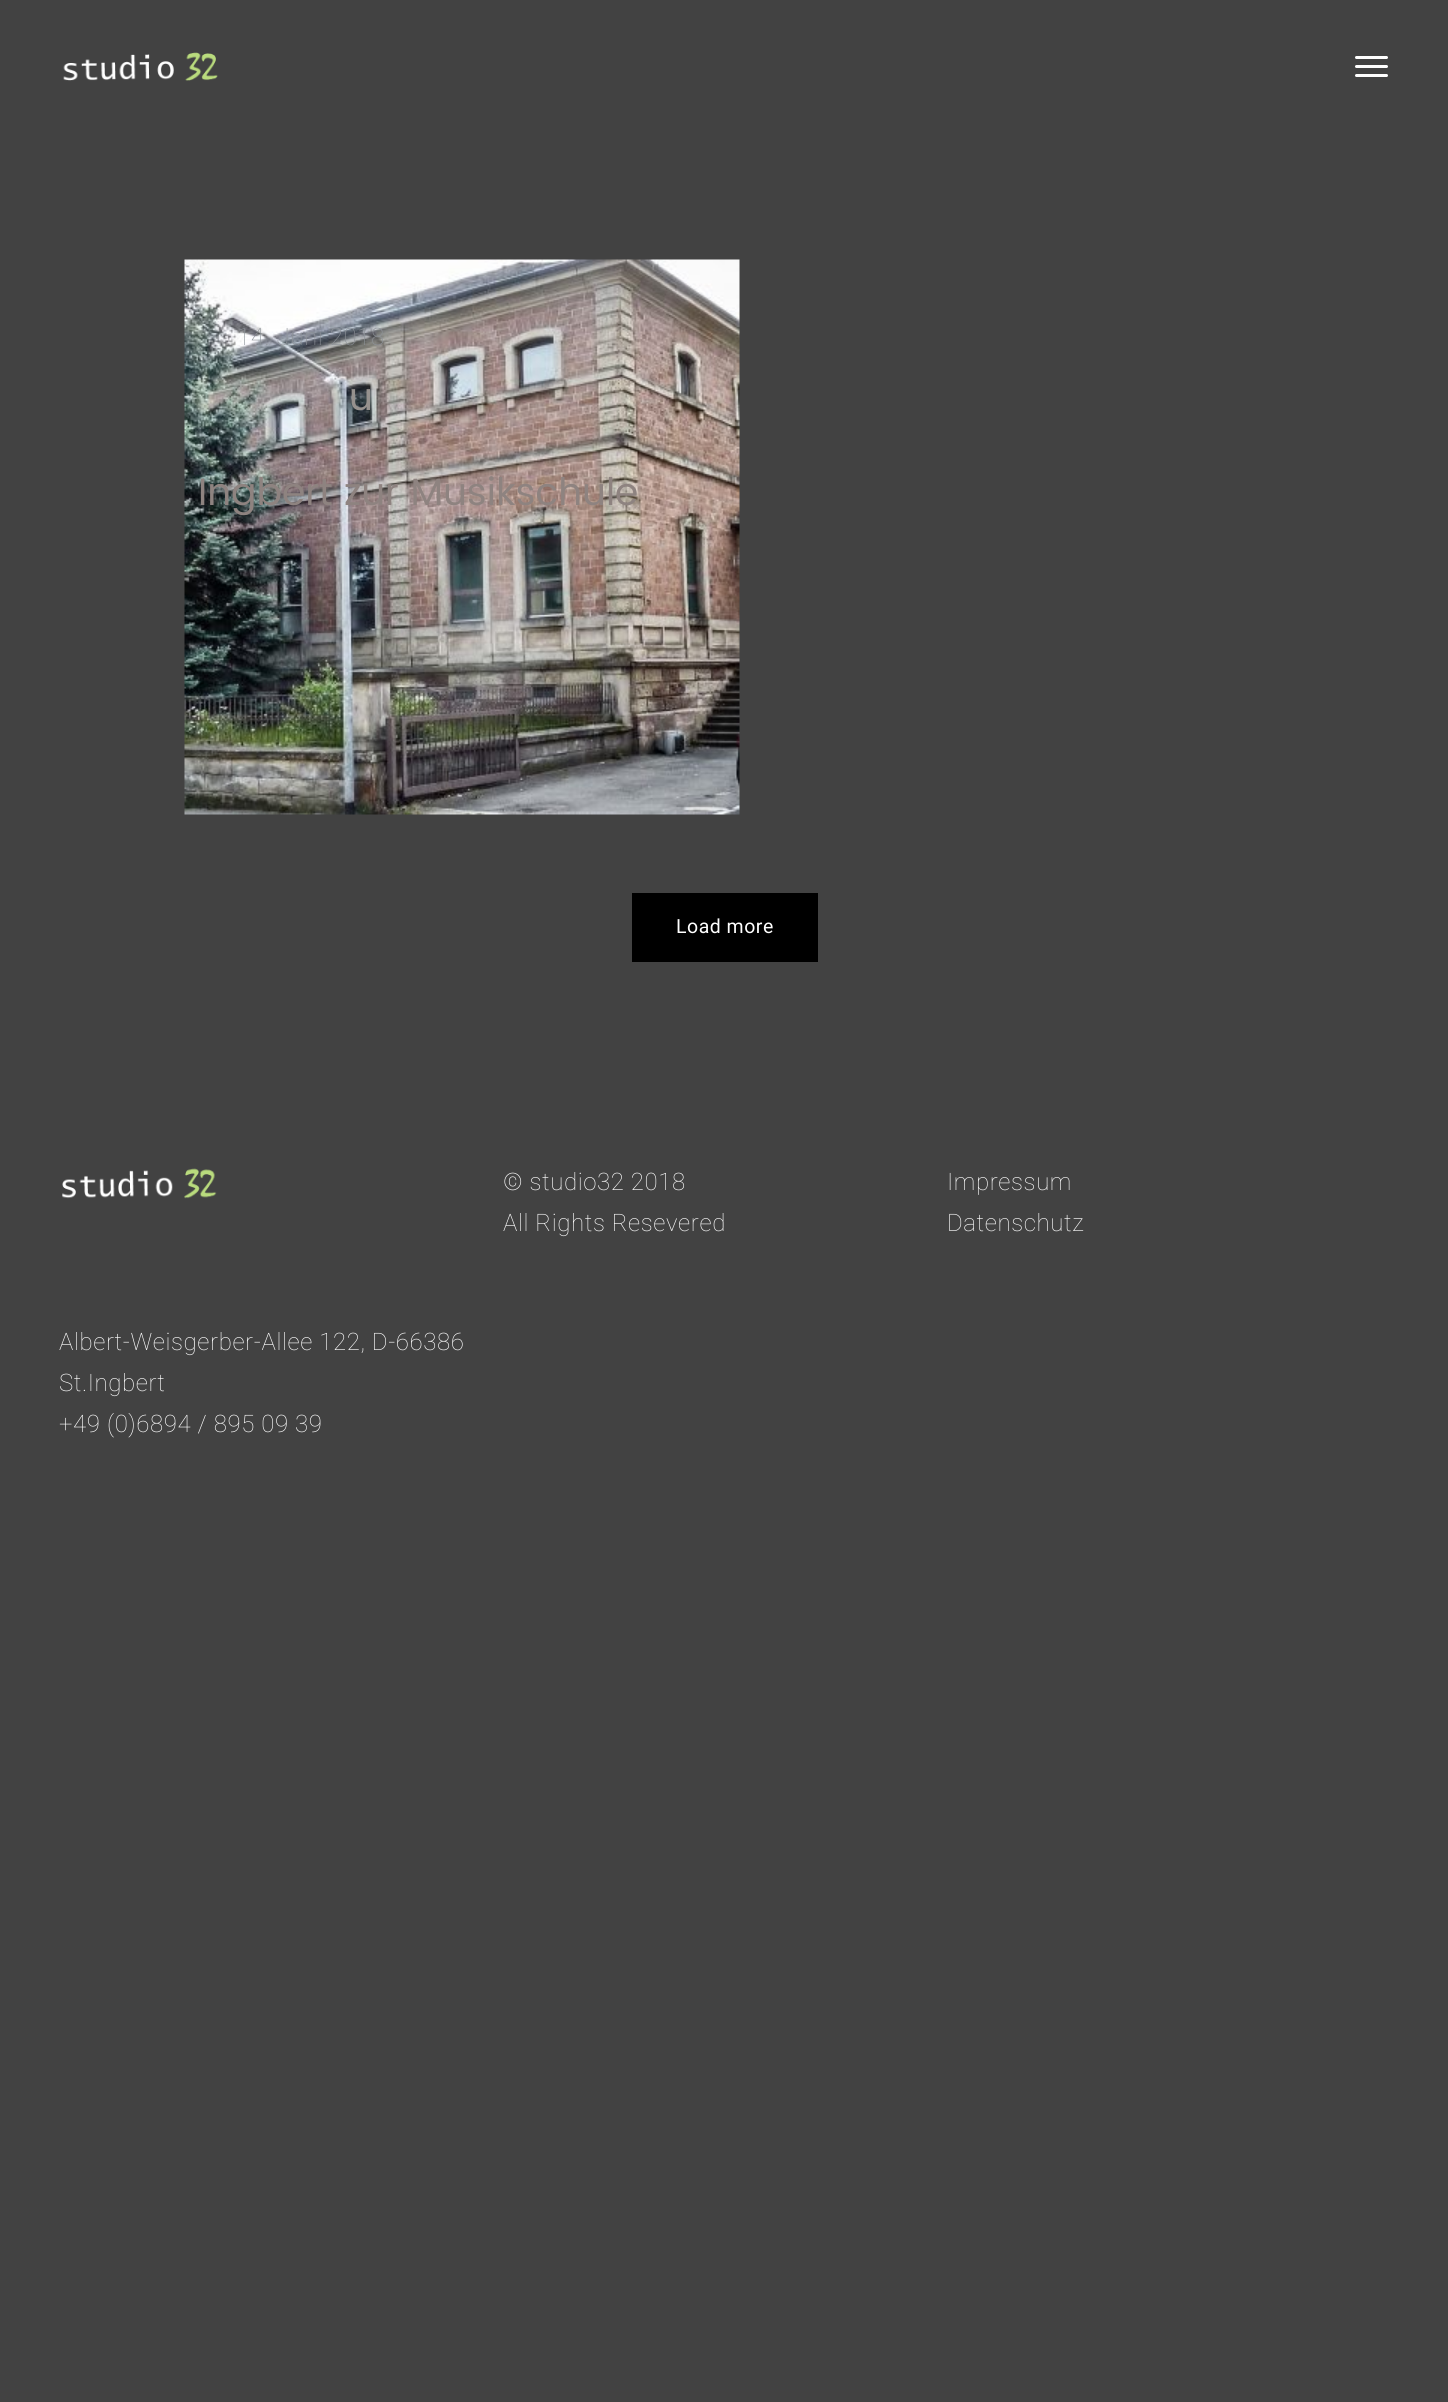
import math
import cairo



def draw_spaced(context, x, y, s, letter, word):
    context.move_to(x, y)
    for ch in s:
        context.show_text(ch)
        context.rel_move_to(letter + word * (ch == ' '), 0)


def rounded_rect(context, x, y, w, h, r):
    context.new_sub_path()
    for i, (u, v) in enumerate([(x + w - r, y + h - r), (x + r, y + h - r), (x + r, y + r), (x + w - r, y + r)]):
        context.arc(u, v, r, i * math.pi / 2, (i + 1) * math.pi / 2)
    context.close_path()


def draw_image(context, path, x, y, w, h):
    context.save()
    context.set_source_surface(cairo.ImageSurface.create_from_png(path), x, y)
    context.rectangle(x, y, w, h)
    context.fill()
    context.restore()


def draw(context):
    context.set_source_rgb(66 / 255, 66 / 255, 66 / 255)
    context.paint()
    draw_image(context, "images/1.png", 63, 52, 155, 29)
    context.set_source_rgb(1, 1, 1)
    rounded_rect(context, 1355, 56, 33, 3, 1.5)
    context.fill()
    rounded_rect(context, 1355, 65, 33, 3, 1.5)
    context.fill()
    rounded_rect(context, 1355, 74, 33, 3, 1.5)
    context.fill()
    draw_image(context, "images/2.png", 184, 259, 556, 556)
    context.set_source_rgb(0, 0, 0)
    context.rectangle(632, 893, 186, 69)
    context.fill()
    draw_image(context, "images/3.png", 62, 1168, 155, 31)
    context.select_font_face("Roboto Thin")
    context.set_font_size(24)
    context.set_source_rgb(141 / 255, 146 / 255, 152 / 255)
    draw_spaced(context, 237, 345, "14. Juni 2018", 0.6, 0)
    context.select_font_face("Poppins")
    context.set_font_size(38)
    context.set_source_rgb(150 / 255, 145 / 255, 142 / 255)
    context.move_to(349, 410)
    context.show_text("u")
    context.set_source_rgb(142 / 255, 131 / 255, 128 / 255)
    context.move_to(198, 505)
    context.show_text("Ingbert zur Musikschule")
    context.select_font_face("Roboto")
    context.set_font_size(19.5)
    context.set_source_rgb(1, 1, 1)
    draw_spaced(context, 676, 933, "Load more", 0.5, 0)
    context.select_font_face("Roboto Thin")
    context.set_font_size(24)
    draw_spaced(context, 503, 1190, "© studio32 2018", 0.6, 0)
    draw_spaced(context, 503, 1231, "All Rights Resevered", 0.6, 0)
    draw_spaced(context, 947, 1190, "Impressum", 0.6, 0)
    draw_spaced(context, 947, 1231, "Datenschutz", 0.6, 0)
    draw_spaced(context, 59, 1350, "Albert-Weisgerber-Allee 122, D-66386", 0.6, 0)
    draw_spaced(context, 59, 1391, "St.Ingbert", 0.6, 0)
    draw_spaced(context, 59, 1432, "+49 (0)6894 / 895 09 39", 0.6, 0)


surface = cairo.ImageSurface(cairo.Format.RGB24, 1448, 2402)
context = cairo.Context(surface)
options = cairo.FontOptions()
options.set_hint_metrics(cairo.HintMetrics.OFF)
options.set_hint_style(cairo.HintStyle.NONE)
context.set_font_options(options)
context.set_miter_limit(4)
draw(context)
surface.write_to_png("out.png")
